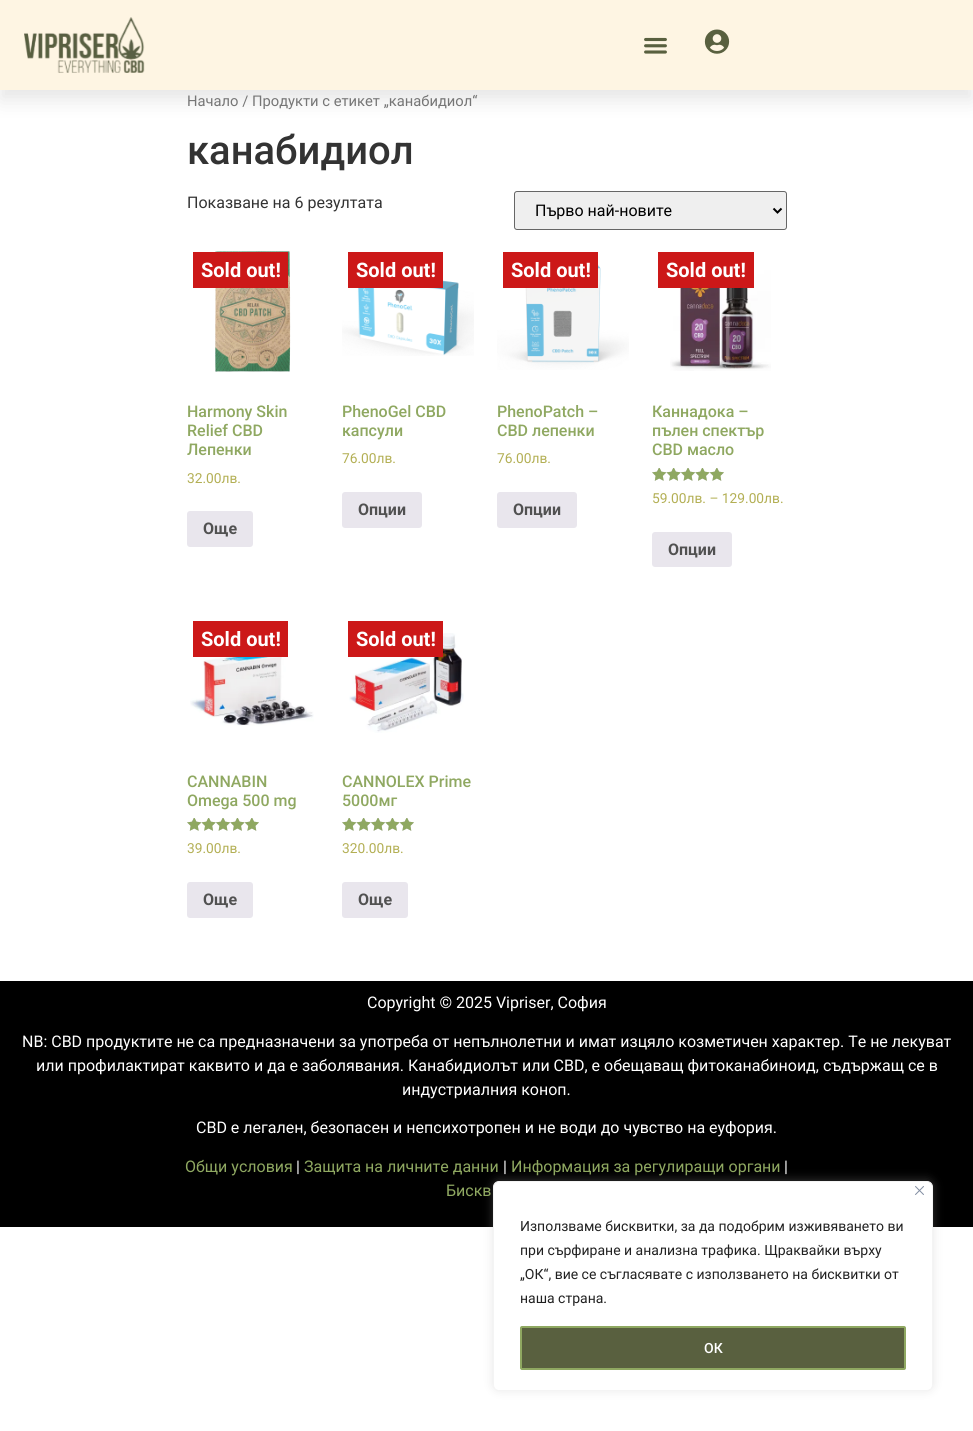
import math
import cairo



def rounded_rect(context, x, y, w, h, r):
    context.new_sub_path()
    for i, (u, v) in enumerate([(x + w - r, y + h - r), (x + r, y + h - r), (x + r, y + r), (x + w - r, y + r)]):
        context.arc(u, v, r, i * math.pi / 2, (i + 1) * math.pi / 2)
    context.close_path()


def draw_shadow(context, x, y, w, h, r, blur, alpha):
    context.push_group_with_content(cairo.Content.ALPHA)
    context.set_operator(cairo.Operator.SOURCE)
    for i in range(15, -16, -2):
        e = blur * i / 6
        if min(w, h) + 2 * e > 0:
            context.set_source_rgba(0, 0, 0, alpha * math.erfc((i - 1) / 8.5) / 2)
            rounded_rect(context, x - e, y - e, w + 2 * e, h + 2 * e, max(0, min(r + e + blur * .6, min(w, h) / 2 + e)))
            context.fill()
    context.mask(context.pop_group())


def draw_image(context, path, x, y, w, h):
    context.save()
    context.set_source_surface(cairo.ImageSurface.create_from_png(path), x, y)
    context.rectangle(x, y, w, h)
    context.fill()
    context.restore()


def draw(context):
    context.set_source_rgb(1, 1, 1)
    context.paint()
    context.set_source_rgb(0, 0, 0)
    draw_shadow(context, 0, 10, 973, 90, 0, 10, 0.1)
    context.set_source_rgb(254 / 255, 245 / 255, 227 / 255)
    context.rectangle(0, 0, 973, 90)
    context.fill()
    draw_image(context, "images/1.png", 24, 17, 121, 56)
    draw_image(context, "images/2.png", 644, 37, 23, 17)
    draw_image(context, "images/3.png", 704, 29, 26, 25)
    context.set_source_rgb(239 / 255, 239 / 255, 239 / 255)
    rounded_rect(context, 514.5, 191.5, 272, 38, 2.5)
    context.fill_preserve()
    context.set_source_rgb(102 / 255, 102 / 255, 102 / 255)
    context.set_line_width(1)
    context.stroke()
    context.new_path()
    context.move_to(773.5, 208.5)
    context.line_to(777.5, 212.5)
    context.line_to(781.5, 208.5)
    context.set_source_rgb(0, 0, 0)
    context.set_line_width(2)
    context.stroke()
    draw_image(context, "images/4.png", 215, 251, 76, 121)
    context.set_source_rgb(204 / 255, 24 / 255, 24 / 255)
    context.rectangle(193, 252, 95, 36)
    context.fill()
    context.set_source_rgb(233 / 255, 230 / 255, 237 / 255)
    rounded_rect(context, 187, 511, 66, 36, 3)
    context.fill()
    draw_image(context, "images/5.png", 342, 272, 132, 84)
    context.set_source_rgb(204 / 255, 24 / 255, 24 / 255)
    context.rectangle(348, 252, 95, 36)
    context.fill()
    context.set_source_rgb(233 / 255, 230 / 255, 237 / 255)
    rounded_rect(context, 342, 492, 80, 36, 3)
    context.fill()
    draw_image(context, "images/6.png", 497, 264, 132, 106)
    context.set_source_rgb(204 / 255, 24 / 255, 24 / 255)
    context.rectangle(503, 252, 95, 36)
    context.fill()
    context.set_source_rgb(233 / 255, 230 / 255, 237 / 255)
    rounded_rect(context, 497, 492, 80, 36, 3)
    context.fill()
    draw_image(context, "images/7.png", 670, 257, 101, 114)
    context.set_source_rgb(204 / 255, 24 / 255, 24 / 255)
    context.rectangle(658, 252, 96, 36)
    context.fill()
    draw_image(context, "images/8.png", 652, 468, 72, 13)
    draw_image(context, "images/9.png", 652, 468, 72, 13)
    context.set_source_rgb(233 / 255, 230 / 255, 237 / 255)
    rounded_rect(context, 652, 532, 80, 35, 3)
    context.fill()
    draw_image(context, "images/10.png", 190, 651, 124, 75)
    context.set_source_rgb(204 / 255, 24 / 255, 24 / 255)
    context.rectangle(193, 621, 95, 36)
    context.fill()
    draw_image(context, "images/8.png", 187, 818, 72, 13)
    draw_image(context, "images/9.png", 187, 818, 72, 13)
    context.set_source_rgb(233 / 255, 230 / 255, 237 / 255)
    rounded_rect(context, 187, 882, 66, 36, 3)
    context.fill()
    draw_image(context, "images/11.png", 349, 633, 115, 100)
    context.set_source_rgb(204 / 255, 24 / 255, 24 / 255)
    context.rectangle(348, 621, 95, 36)
    context.fill()
    draw_image(context, "images/8.png", 342, 818, 72, 13)
    draw_image(context, "images/9.png", 342, 818, 72, 13)
    context.set_source_rgb(233 / 255, 230 / 255, 237 / 255)
    rounded_rect(context, 342, 882, 66, 36, 3)
    context.fill()
    context.set_source_rgb(0, 0, 0)
    context.rectangle(0, 981, 973, 246)
    context.fill()
    context.set_source_rgb(172 / 255, 171 / 255, 171 / 255)
    draw_shadow(context, 493, 1180, 440, 210, 6, 5, 0.3)
    context.set_source_rgb(1, 1, 1)
    rounded_rect(context, 493.5, 1181.5, 439, 209, 5.5)
    context.fill_preserve()
    context.set_source_rgb(244 / 255, 244 / 255, 244 / 255)
    context.set_line_width(1)
    context.stroke()
    draw_image(context, "images/12.png", 915, 1186, 9, 9)
    context.set_source_rgb(89 / 255, 96 / 255, 63 / 255)
    rounded_rect(context, 521, 1327, 384, 42, 1)
    context.fill_preserve()
    context.set_source_rgb(143 / 255, 168 / 255, 97 / 255)
    context.set_line_width(2)
    context.stroke()
    context.select_font_face("Roboto")
    context.set_font_size(14.75)
    context.set_source_rgb(118 / 255, 118 / 255, 118 / 255)
    context.move_to(187, 106)
    context.show_text("Начало / Продукти с етикет „канабидиол“")
    context.select_font_face("Roboto Medium")
    context.set_font_size(40)
    context.set_source_rgb(51 / 255, 51 / 255, 51 / 255)
    context.move_to(187, 164)
    context.show_text("канабидиол")
    context.select_font_face("Roboto")
    context.set_font_size(16)
    context.move_to(187, 208)
    context.show_text("Показване на 6 резултата")
    context.set_source_rgb(0, 0, 0)
    context.move_to(535, 216)
    context.show_text("Първо най-новите")
    context.select_font_face("Roboto", cairo.FontSlant.NORMAL, cairo.FontWeight.BOLD)
    context.set_font_size(20)
    context.set_source_rgb(1, 1, 1)
    context.move_to(201, 277)
    context.show_text("Sold out!")
    context.select_font_face("Roboto Medium")
    context.set_font_size(16)
    context.set_source_rgb(143 / 255, 168 / 255, 97 / 255)
    context.move_to(187, 417)
    context.show_text("Harmony Skin")
    context.move_to(187, 436)
    context.show_text("Relief CBD")
    context.move_to(187, 455)
    context.show_text("Лепенки")
    context.select_font_face("Roboto")
    context.set_font_size(13.75)
    context.set_source_rgb(179 / 255, 175 / 255, 84 / 255)
    context.move_to(187, 483)
    context.show_text("32.00лв.")
    context.select_font_face("Roboto", cairo.FontSlant.NORMAL, cairo.FontWeight.BOLD)
    context.set_font_size(16)
    context.set_source_rgb(81 / 255, 81 / 255, 81 / 255)
    context.move_to(203, 534)
    context.show_text("Още")
    context.set_font_size(20)
    context.set_source_rgb(1, 1, 1)
    context.move_to(356, 277)
    context.show_text("Sold out!")
    context.select_font_face("Roboto Medium")
    context.set_font_size(16)
    context.set_source_rgb(143 / 255, 168 / 255, 97 / 255)
    context.move_to(342, 417)
    context.show_text("PhenoGel CBD")
    context.move_to(342, 436)
    context.show_text("капсули")
    context.select_font_face("Roboto")
    context.set_font_size(13.75)
    context.set_source_rgb(179 / 255, 175 / 255, 84 / 255)
    context.move_to(342, 463)
    context.show_text("76.00лв.")
    context.select_font_face("Roboto", cairo.FontSlant.NORMAL, cairo.FontWeight.BOLD)
    context.set_font_size(16)
    context.set_source_rgb(81 / 255, 81 / 255, 81 / 255)
    context.move_to(358, 515)
    context.show_text("Опции")
    context.set_font_size(20)
    context.set_source_rgb(1, 1, 1)
    context.move_to(511, 277)
    context.show_text("Sold out!")
    context.select_font_face("Roboto Medium")
    context.set_font_size(16)
    context.set_source_rgb(143 / 255, 168 / 255, 97 / 255)
    context.move_to(497, 417)
    context.show_text("PhenoPatch –")
    context.move_to(497, 436)
    context.show_text("CBD лепенки")
    context.select_font_face("Roboto")
    context.set_font_size(13.75)
    context.set_source_rgb(179 / 255, 175 / 255, 84 / 255)
    context.move_to(497, 463)
    context.show_text("76.00лв.")
    context.select_font_face("Roboto", cairo.FontSlant.NORMAL, cairo.FontWeight.BOLD)
    context.set_font_size(16)
    context.set_source_rgb(81 / 255, 81 / 255, 81 / 255)
    context.move_to(513, 515)
    context.show_text("Опции")
    context.set_font_size(20)
    context.set_source_rgb(1, 1, 1)
    context.move_to(666, 277)
    context.show_text("Sold out!")
    context.select_font_face("Roboto Medium")
    context.set_font_size(16)
    context.set_source_rgb(143 / 255, 168 / 255, 97 / 255)
    context.move_to(652, 417)
    context.show_text("Каннадока –")
    context.move_to(652, 436)
    context.show_text("пълен спектър")
    context.move_to(652, 455)
    context.show_text("CBD масло")
    context.select_font_face("Roboto")
    context.set_font_size(13.75)
    context.set_source_rgb(179 / 255, 175 / 255, 84 / 255)
    context.move_to(652, 503)
    context.show_text("59.00лв. – 129.00лв.")
    context.select_font_face("Roboto", cairo.FontSlant.NORMAL, cairo.FontWeight.BOLD)
    context.set_font_size(16)
    context.set_source_rgb(81 / 255, 81 / 255, 81 / 255)
    context.move_to(668, 555)
    context.show_text("Опции")
    context.set_font_size(20)
    context.set_source_rgb(1, 1, 1)
    context.move_to(201, 646)
    context.show_text("Sold out!")
    context.select_font_face("Roboto Medium")
    context.set_font_size(16)
    context.set_source_rgb(143 / 255, 168 / 255, 97 / 255)
    context.move_to(187, 787)
    context.show_text("CANNABIN")
    context.move_to(187, 806)
    context.show_text("Omega 500 mg")
    context.select_font_face("Roboto")
    context.set_font_size(13.75)
    context.set_source_rgb(179 / 255, 175 / 255, 84 / 255)
    context.move_to(187, 853)
    context.show_text("39.00лв.")
    context.select_font_face("Roboto", cairo.FontSlant.NORMAL, cairo.FontWeight.BOLD)
    context.set_font_size(16)
    context.set_source_rgb(81 / 255, 81 / 255, 81 / 255)
    context.move_to(203, 905)
    context.show_text("Още")
    context.set_font_size(20)
    context.set_source_rgb(1, 1, 1)
    context.move_to(356, 646)
    context.show_text("Sold out!")
    context.select_font_face("Roboto Medium")
    context.set_font_size(16)
    context.set_source_rgb(143 / 255, 168 / 255, 97 / 255)
    context.move_to(342, 787)
    context.show_text("CANNOLEX Prime")
    context.move_to(342, 806)
    context.show_text("5000мг")
    context.select_font_face("Roboto")
    context.set_font_size(13.75)
    context.set_source_rgb(179 / 255, 175 / 255, 84 / 255)
    context.move_to(342, 853)
    context.show_text("320.00лв.")
    context.select_font_face("Roboto", cairo.FontSlant.NORMAL, cairo.FontWeight.BOLD)
    context.set_font_size(16)
    context.set_source_rgb(81 / 255, 81 / 255, 81 / 255)
    context.move_to(358, 905)
    context.show_text("Още")
    context.select_font_face("Roboto")
    context.set_source_rgb(1, 1, 1)
    context.move_to(367, 1008)
    context.show_text("Copyright © 2025 Vipriser, София")
    context.move_to(22, 1047)
    context.show_text("NB: CBD продуктите не са предназначени за употреба от непълнолетни и имат изцяло козметичен характер. Те не лекуват")
    context.move_to(36, 1071)
    context.show_text("или профилактират каквито и да е заболявания. Канабидиолът или CBD, е обещаващ фитоканабиноид, съдържащ се в")
    context.move_to(402, 1095)
    context.show_text("индустриалния коноп.")
    context.move_to(196, 1133)
    context.show_text("CBD е легален, безопасен и непсихотропен и не води до чувство на еуфория.")
    context.set_source_rgb(143 / 255, 168 / 255, 97 / 255)
    context.move_to(185, 1172)
    context.show_text("Общи условия")
    context.set_source_rgb(1, 1, 1)
    context.move_to(296, 1172)
    context.show_text("|")
    context.set_source_rgb(143 / 255, 168 / 255, 97 / 255)
    context.move_to(304, 1172)
    context.show_text("Защита на личните данни")
    context.set_source_rgb(1, 1, 1)
    context.move_to(503, 1172)
    context.show_text("|")
    context.set_source_rgb(143 / 255, 168 / 255, 97 / 255)
    context.move_to(511, 1172)
    context.show_text("Информация за регулиращи органи")
    context.set_source_rgb(1, 1, 1)
    context.move_to(784, 1172)
    context.show_text("|")
    context.set_source_rgb(143 / 255, 168 / 255, 97 / 255)
    context.move_to(446, 1196)
    context.show_text("Бискв")
    context.set_font_size(14)
    context.set_source_rgb(33 / 255, 33 / 255, 33 / 255)
    context.move_to(520, 1231)
    context.show_text("Използваме бисквитки, за да подобрим изживяването ви")
    context.move_to(520, 1255)
    context.show_text("при сърфиране и анализна трафика. Щраквайки върху")
    context.move_to(520, 1279)
    context.show_text("„ОК“, вие се съгласявате с използването на бисквитки от")
    context.move_to(520, 1303)
    context.show_text("наша страна.")
    context.select_font_face("Roboto Medium")
    context.set_source_rgb(1, 1, 1)
    context.move_to(704, 1353)
    context.show_text("ОК")


surface = cairo.ImageSurface(cairo.Format.RGB24, 973, 1431)
context = cairo.Context(surface)
options = cairo.FontOptions()
options.set_hint_metrics(cairo.HintMetrics.OFF)
options.set_hint_style(cairo.HintStyle.NONE)
context.set_font_options(options)
context.set_miter_limit(4)
draw(context)
surface.write_to_png("out.png")
